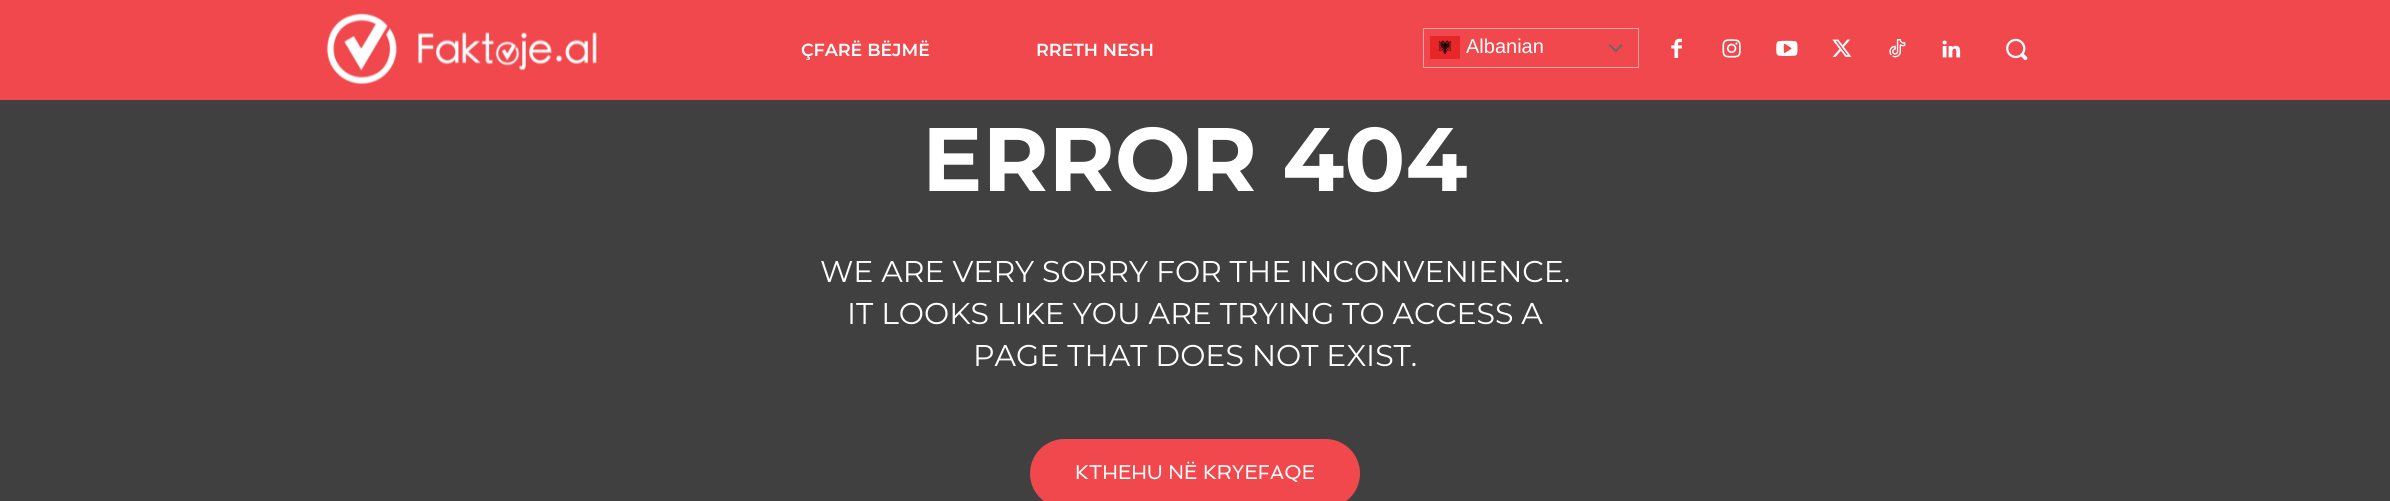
import math
import cairo



def rounded_rect(context, x, y, w, h, r):
    context.new_sub_path()
    for i, (u, v) in enumerate([(x + w - r, y + h - r), (x + r, y + h - r), (x + r, y + r), (x + w - r, y + r)]):
        context.arc(u, v, r, i * math.pi / 2, (i + 1) * math.pi / 2)
    context.close_path()


def draw_image(context, path, x, y, w, h):
    context.save()
    context.set_source_surface(cairo.ImageSurface.create_from_png(path), x, y)
    context.rectangle(x, y, w, h)
    context.fill()
    context.restore()


def draw(context):
    context.set_source_rgb(64 / 255, 64 / 255, 64 / 255)
    context.paint()
    context.set_source_rgb(240 / 255, 72 / 255, 77 / 255)
    context.rectangle(0, 0, 2390, 100)
    context.fill()
    draw_image(context, "images/1.png", 326, 13, 271, 72)
    context.rectangle(1423.5, 28.5, 215, 39)
    context.set_source_rgb(248 / 255, 164 / 255, 166 / 255)
    context.set_line_width(1)
    context.stroke()
    draw_image(context, "images/2.png", 1430, 36, 30, 23)
    draw_image(context, "images/3.png", 1609, 44, 14, 9)
    draw_image(context, "images/4.png", 1671, 38, 11, 20)
    draw_image(context, "images/5.png", 1722, 39, 19, 19)
    draw_image(context, "images/6.png", 1776, 40, 22, 16)
    draw_image(context, "images/7.png", 1832, 39, 20, 18)
    draw_image(context, "images/8.png", 1889, 39, 17, 19)
    draw_image(context, "images/9.png", 1942, 40, 19, 18)
    draw_image(context, "images/10.png", 2006, 38, 22, 23)
    context.set_source_rgb(240 / 255, 72 / 255, 77 / 255)
    rounded_rect(context, 1030, 439, 330, 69, 34.5)
    context.fill()
    context.select_font_face("Montserrat SemiBold")
    context.set_font_size(17.5)
    context.set_source_rgb(1, 1, 1)
    context.move_to(801, 56)
    context.show_text("ÇFARË BËJMË")
    context.move_to(1036, 56)
    context.show_text("RRETH NESH")
    context.select_font_face("Liberation Sans")
    context.set_font_size(20)
    context.move_to(1466, 53)
    context.show_text("Albanian")
    context.select_font_face("Montserrat", cairo.FontSlant.NORMAL, cairo.FontWeight.BOLD)
    context.set_font_size(90)
    context.move_to(922, 191)
    context.show_text("ERROR 404")
    context.select_font_face("Montserrat")
    context.set_font_size(30)
    context.move_to(820, 282)
    context.show_text("WE ARE VERY SORRY FOR THE INCONVENIENCE.")
    context.move_to(847, 324)
    context.show_text("IT LOOKS LIKE YOU ARE TRYING TO ACCESS A")
    context.move_to(973, 366)
    context.show_text("PAGE THAT DOES NOT EXIST.")
    context.select_font_face("Spinnaker")
    context.set_font_size(20)
    context.move_to(1075, 479)
    context.show_text("KTHEHU NË KRYEFAQE")


surface = cairo.ImageSurface(cairo.Format.RGB24, 2390, 501)
context = cairo.Context(surface)
options = cairo.FontOptions()
options.set_hint_metrics(cairo.HintMetrics.OFF)
options.set_hint_style(cairo.HintStyle.NONE)
context.set_font_options(options)
context.set_miter_limit(4)
draw(context)
surface.write_to_png("out.png")
